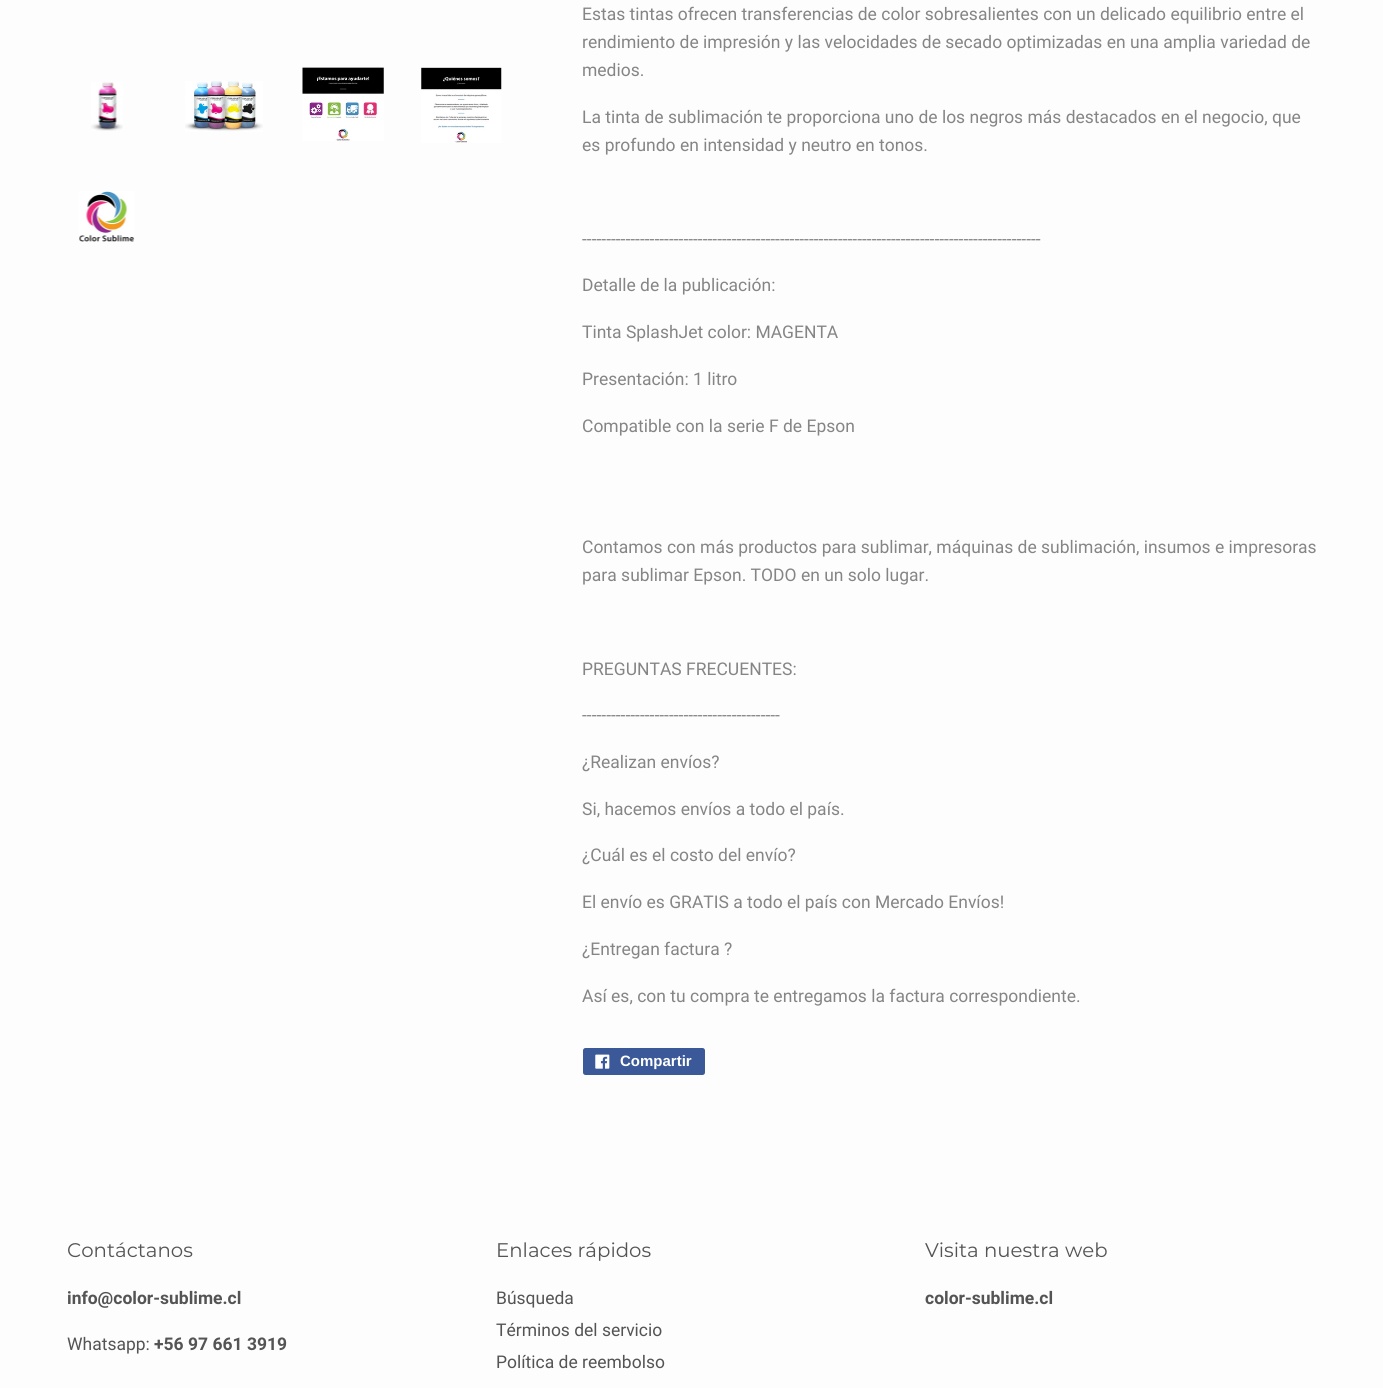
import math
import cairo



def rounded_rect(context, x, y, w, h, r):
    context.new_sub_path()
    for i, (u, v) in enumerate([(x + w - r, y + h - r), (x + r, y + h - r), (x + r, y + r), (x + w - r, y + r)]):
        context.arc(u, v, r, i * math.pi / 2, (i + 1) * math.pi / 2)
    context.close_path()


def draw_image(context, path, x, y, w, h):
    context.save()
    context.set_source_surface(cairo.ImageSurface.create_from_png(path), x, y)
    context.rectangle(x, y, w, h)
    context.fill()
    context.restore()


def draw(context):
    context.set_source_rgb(253 / 255, 253 / 255, 253 / 255)
    context.paint()
    draw_image(context, "images/1.png", 91, 82, 32, 49)
    draw_image(context, "images/2.png", 185, 81, 78, 51)
    draw_image(context, "images/3.png", 302, 67, 82, 74)
    draw_image(context, "images/4.png", 421, 67, 81, 76)
    draw_image(context, "images/5.png", 79, 191, 56, 51)
    context.set_source_rgb(59 / 255, 89 / 255, 152 / 255)
    rounded_rect(context, 583, 1048, 122, 27, 2.5)
    context.fill()
    draw_image(context, "images/6.png", 595, 1054, 15, 15)
    context.select_font_face("Roboto")
    context.set_font_size(17.5)
    context.set_source_rgb(133 / 255, 133 / 255, 133 / 255)
    context.move_to(582, 20)
    context.show_text("Estas tintas ofrecen transferencias de color sobresalientes con un delicado equilibrio entre el")
    context.move_to(582, 48)
    context.show_text("rendimiento de impresión y las velocidades de secado optimizadas en una amplia variedad de")
    context.move_to(582, 76)
    context.show_text("medios.")
    context.move_to(582, 123)
    context.show_text("La tinta de sublimación te proporciona uno de los negros más destacados en el negocio, que")
    context.move_to(582, 151)
    context.show_text("es profundo en intensidad y neutro en tonos.")
    context.move_to(582, 245)
    context.show_text("-----------------------------------------------------------------------------------------------")
    context.move_to(582, 291)
    context.show_text("Detalle de la publicación:")
    context.move_to(582, 338)
    context.show_text("Tinta SplashJet color: MAGENTA")
    context.move_to(582, 385)
    context.show_text("Presentación: 1 litro")
    context.move_to(582, 432)
    context.show_text("Compatible con la serie F de Epson")
    context.move_to(582, 553)
    context.show_text("Contamos con más productos para sublimar, máquinas de sublimación, insumos e impresoras")
    context.move_to(582, 581)
    context.show_text("para sublimar Epson. TODO en un solo lugar.")
    context.move_to(582, 675)
    context.show_text("PREGUNTAS FRECUENTES:")
    context.move_to(582, 721)
    context.show_text("-----------------------------------------")
    context.move_to(582, 768)
    context.show_text("¿Realizan envíos?")
    context.move_to(582, 815)
    context.show_text("Si, hacemos envíos a todo el país.")
    context.move_to(582, 861)
    context.show_text("¿Cuál es el costo del envío?")
    context.move_to(582, 908)
    context.show_text("El envío es GRATIS a todo el país con Mercado Envíos!")
    context.move_to(582, 955)
    context.show_text("¿Entregan factura ?")
    context.move_to(582, 1002)
    context.show_text("Así es, con tu compra te entregamos la factura correspondiente.")
    context.select_font_face("Liberation Sans", cairo.FontSlant.NORMAL, cairo.FontWeight.BOLD)
    context.set_font_size(15)
    context.set_source_rgb(1, 1, 1)
    context.move_to(620, 1066)
    context.show_text("Compartir")
    context.select_font_face("Montserrat")
    context.set_font_size(19.75)
    context.set_source_rgb(84 / 255, 84 / 255, 84 / 255)
    context.move_to(67, 1257)
    context.show_text("Contáctanos")
    context.select_font_face("Roboto", cairo.FontSlant.NORMAL, cairo.FontWeight.BOLD)
    context.set_font_size(17.5)
    context.move_to(67, 1304)
    context.show_text("info@color-sublime.cl")
    context.select_font_face("Roboto")
    context.move_to(67, 1350)
    context.show_text("Whatsapp:")
    context.select_font_face("Roboto", cairo.FontSlant.NORMAL, cairo.FontWeight.BOLD)
    context.move_to(154, 1350)
    context.show_text("+56 97 661 3919")
    context.select_font_face("Montserrat")
    context.set_font_size(19.75)
    context.move_to(496, 1257)
    context.show_text("Enlaces rápidos")
    context.select_font_face("Roboto")
    context.set_font_size(17.5)
    context.move_to(496, 1304)
    context.show_text("Búsqueda")
    context.move_to(496, 1336)
    context.show_text("Términos del servicio")
    context.move_to(496, 1368)
    context.show_text("Política de reembolso")
    context.select_font_face("Montserrat")
    context.set_font_size(19.75)
    context.move_to(925, 1257)
    context.show_text("Visita nuestra web")
    context.select_font_face("Roboto", cairo.FontSlant.NORMAL, cairo.FontWeight.BOLD)
    context.set_font_size(17.5)
    context.move_to(925, 1304)
    context.show_text("color-sublime.cl")


surface = cairo.ImageSurface(cairo.Format.RGB24, 1383, 1388)
context = cairo.Context(surface)
options = cairo.FontOptions()
options.set_hint_metrics(cairo.HintMetrics.OFF)
options.set_hint_style(cairo.HintStyle.NONE)
context.set_font_options(options)
context.set_miter_limit(4)
draw(context)
surface.write_to_png("out.png")
